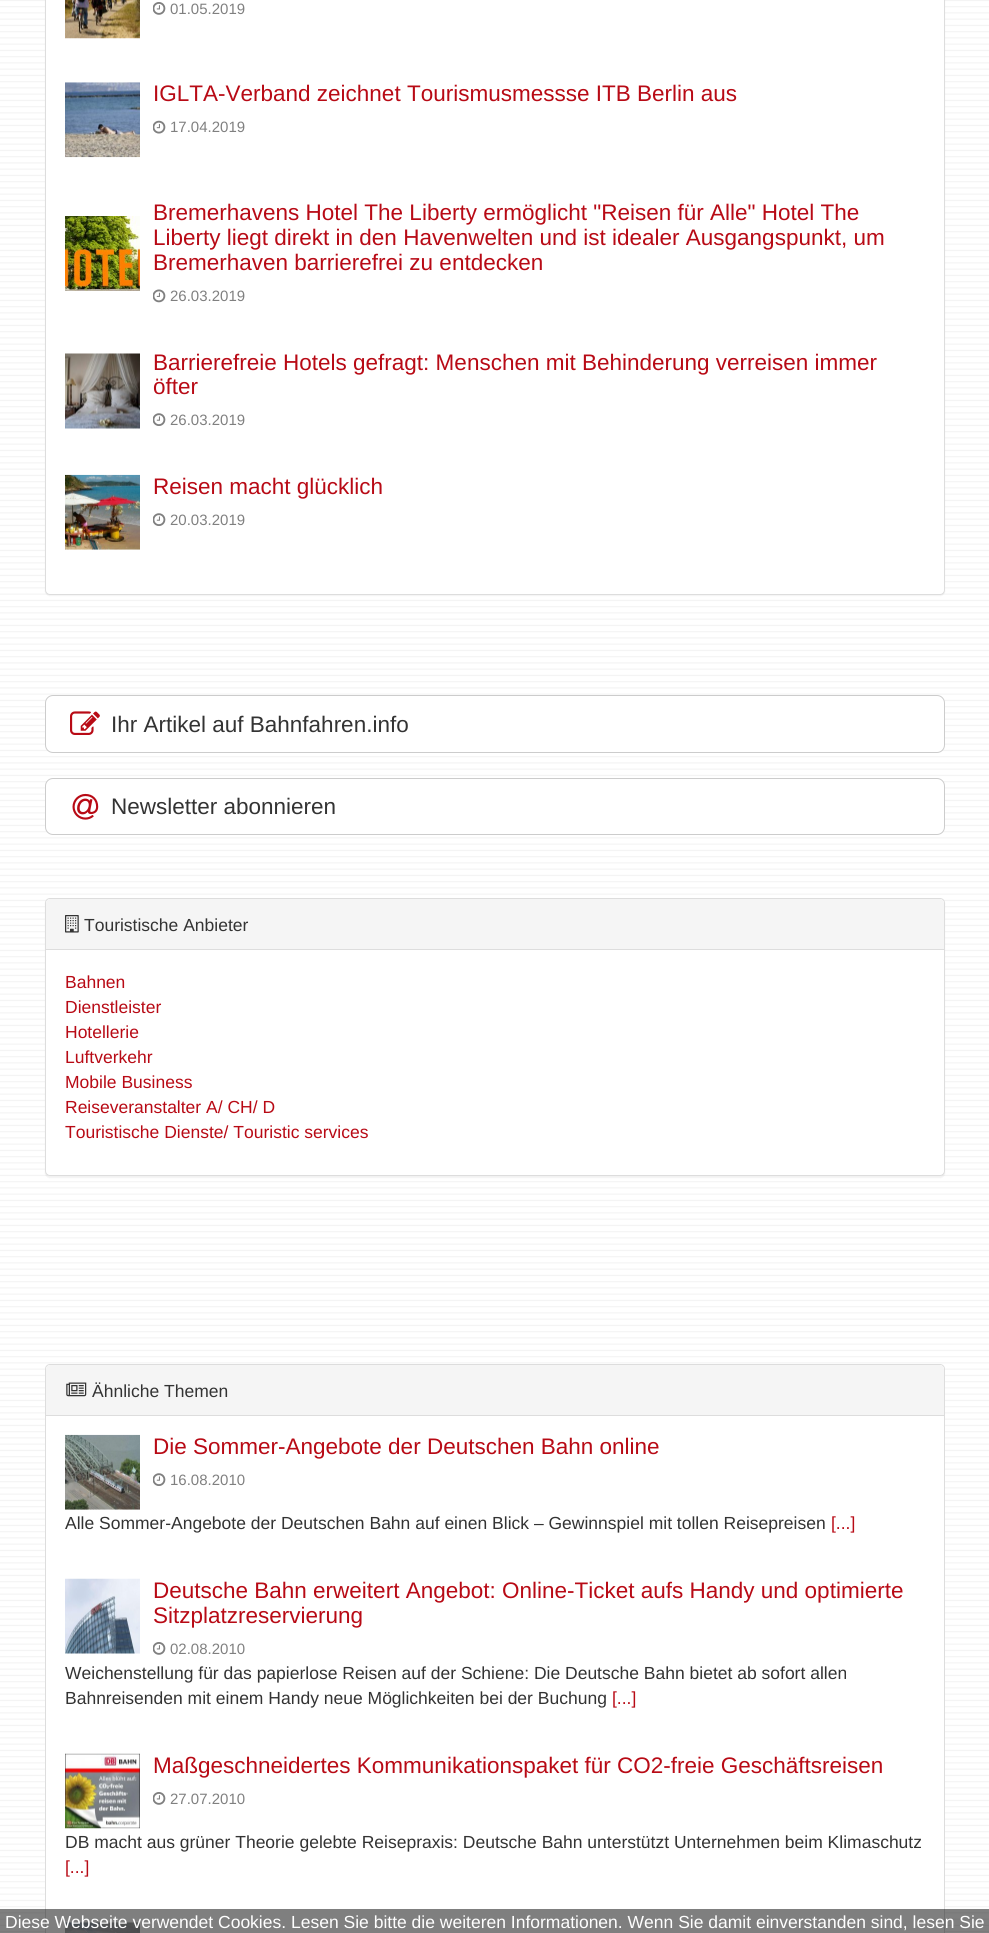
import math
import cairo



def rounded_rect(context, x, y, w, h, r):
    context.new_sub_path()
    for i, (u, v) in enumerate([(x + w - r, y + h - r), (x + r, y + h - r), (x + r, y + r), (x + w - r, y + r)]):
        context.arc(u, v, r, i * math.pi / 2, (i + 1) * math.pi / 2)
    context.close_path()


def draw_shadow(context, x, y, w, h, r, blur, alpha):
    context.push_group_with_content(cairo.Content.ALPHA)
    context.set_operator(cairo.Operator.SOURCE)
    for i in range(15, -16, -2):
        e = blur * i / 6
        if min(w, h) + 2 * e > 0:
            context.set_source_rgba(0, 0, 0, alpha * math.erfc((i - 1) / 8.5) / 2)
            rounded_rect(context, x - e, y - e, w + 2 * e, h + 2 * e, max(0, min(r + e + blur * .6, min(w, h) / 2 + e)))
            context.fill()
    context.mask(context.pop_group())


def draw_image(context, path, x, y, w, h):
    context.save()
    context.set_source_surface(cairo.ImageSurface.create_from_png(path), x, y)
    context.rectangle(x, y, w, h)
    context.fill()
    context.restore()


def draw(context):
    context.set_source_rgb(1, 1, 1)
    context.paint()
    draw_image(context, "images/1.png", 0, 0, 989, 1932)
    context.set_source_rgb(0, 0, 0)
    draw_shadow(context, 45, -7, 900, 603, 5, 0.5, 0.05)
    context.set_source_rgb(1, 1, 1)
    rounded_rect(context, 45.5, -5.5, 899, 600, 4.5)
    context.fill_preserve()
    context.set_source_rgb(221 / 255, 221 / 255, 221 / 255)
    context.set_line_width(1)
    context.stroke()
    draw_image(context, "images/2.png", 65, 0, 75, 39)
    draw_image(context, "images/3.png", 153, 2, 13, 13)
    draw_image(context, "images/4.png", 65, 82, 75, 76)
    draw_image(context, "images/5.png", 153, 120, 13, 14)
    draw_image(context, "images/6.png", 65, 216, 75, 75)
    draw_image(context, "images/7.png", 153, 289, 13, 14)
    draw_image(context, "images/8.png", 65, 353, 75, 76)
    draw_image(context, "images/9.png", 153, 413, 13, 13)
    draw_image(context, "images/10.png", 65, 474, 75, 76)
    draw_image(context, "images/9.png", 153, 513, 13, 13)
    context.set_source_rgb(1, 1, 1)
    rounded_rect(context, 45.5, 695.5, 899, 57, 7.5)
    context.fill_preserve()
    context.set_source_rgb(204 / 255, 204 / 255, 204 / 255)
    context.stroke()
    draw_image(context, "images/11.png", 70, 711, 30, 24)
    context.set_source_rgb(1, 1, 1)
    rounded_rect(context, 45.5, 778.5, 899, 56, 7.5)
    context.fill_preserve()
    context.set_source_rgb(204 / 255, 204 / 255, 204 / 255)
    context.stroke()
    draw_image(context, "images/12.png", 72, 793, 27, 27)
    context.set_source_rgb(0, 0, 0)
    draw_shadow(context, 45, 899, 900, 279, 5, 0.5, 0.05)
    context.set_source_rgb(1, 1, 1)
    rounded_rect(context, 45.5, 898.5, 899, 277, 4.5)
    context.fill_preserve()
    context.set_source_rgb(221 / 255, 221 / 255, 221 / 255)
    context.stroke()
    context.set_source_rgb(245 / 255, 245 / 255, 245 / 255)
    context.new_path()
    context.move_to(50, 899)
    context.line_to(940, 899)
    context.curve_to(942, 899, 944, 901, 944, 903)
    context.line_to(944, 950)
    context.line_to(46, 950)
    context.line_to(46, 903)
    context.curve_to(46, 901, 48, 899, 50, 899)
    context.close_path()
    context.fill()
    context.set_source_rgb(221 / 255, 221 / 255, 221 / 255)
    context.rectangle(46, 949, 898, 1)
    context.fill()
    draw_image(context, "images/13.png", 65, 915, 14, 18)
    context.set_source_rgb(1, 1, 1)
    rounded_rect(context, 45.5, 1364.5, 899, 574, 4.5)
    context.fill_preserve()
    context.set_source_rgb(221 / 255, 221 / 255, 221 / 255)
    context.stroke()
    context.set_source_rgb(245 / 255, 245 / 255, 245 / 255)
    context.new_path()
    context.move_to(50, 1365)
    context.line_to(940, 1365)
    context.curve_to(942, 1365, 944, 1367, 944, 1369)
    context.line_to(944, 1416)
    context.line_to(46, 1416)
    context.line_to(46, 1369)
    context.curve_to(46, 1367, 48, 1365, 50, 1365)
    context.close_path()
    context.fill()
    context.set_source_rgb(221 / 255, 221 / 255, 221 / 255)
    context.rectangle(46, 1415, 898, 1)
    context.fill()
    draw_image(context, "images/14.png", 66, 1382, 21, 15)
    draw_image(context, "images/15.png", 65, 1434, 75, 76)
    draw_image(context, "images/9.png", 153, 1473, 13, 13)
    draw_image(context, "images/16.png", 65, 1578, 75, 76)
    draw_image(context, "images/3.png", 153, 1642, 13, 13)
    draw_image(context, "images/17.png", 65, 1753, 75, 76)
    draw_image(context, "images/3.png", 153, 1792, 13, 13)
    draw_image(context, "images/18.png", 65, 1922, 75, 11)
    context.set_source_rgba(0, 0, 0, 0.5)
    context.rectangle(0, 1909, 989, 24)
    context.fill()
    context.select_font_face("Liberation Sans")
    context.set_font_size(15)
    context.set_source_rgb(128 / 255, 128 / 255, 128 / 255)
    context.move_to(170, 14)
    context.show_text("01.05.2019")
    context.set_font_size(22.5)
    context.set_source_rgb(184 / 255, 10 / 255, 21 / 255)
    context.move_to(153, 101)
    context.show_text("IGLTA-Verband zeichnet Tourismusmessse ITB Berlin aus")
    context.set_font_size(15)
    context.set_source_rgb(128 / 255, 128 / 255, 128 / 255)
    context.move_to(170, 132)
    context.show_text("17.04.2019")
    context.set_font_size(22.5)
    context.set_source_rgb(184 / 255, 10 / 255, 21 / 255)
    context.move_to(153, 220)
    context.show_text("Bremerhavens Hotel The Liberty ermöglicht \"Reisen für Alle\" Hotel The")
    context.move_to(153, 245)
    context.show_text("Liberty liegt direkt in den Havenwelten und ist idealer Ausgangspunkt, um")
    context.move_to(153, 270)
    context.show_text("Bremerhaven barrierefrei zu entdecken")
    context.set_font_size(15)
    context.set_source_rgb(128 / 255, 128 / 255, 128 / 255)
    context.move_to(170, 301)
    context.show_text("26.03.2019")
    context.set_font_size(22.5)
    context.set_source_rgb(184 / 255, 10 / 255, 21 / 255)
    context.move_to(153, 370)
    context.show_text("Barrierefreie Hotels gefragt: Menschen mit Behinderung verreisen immer")
    context.move_to(153, 394)
    context.show_text("öfter")
    context.set_font_size(15)
    context.set_source_rgb(128 / 255, 128 / 255, 128 / 255)
    context.move_to(170, 425)
    context.show_text("26.03.2019")
    context.set_font_size(22.5)
    context.set_source_rgb(184 / 255, 10 / 255, 21 / 255)
    context.move_to(153, 494)
    context.show_text("Reisen macht glücklich")
    context.set_font_size(15)
    context.set_source_rgb(128 / 255, 128 / 255, 128 / 255)
    context.move_to(170, 525)
    context.show_text("20.03.2019")
    context.set_font_size(22.5)
    context.set_source_rgb(51 / 255, 51 / 255, 51 / 255)
    context.move_to(111, 732)
    context.show_text("Ihr Artikel auf Bahnfahren.info")
    context.move_to(111, 814)
    context.show_text("Newsletter abonnieren")
    context.set_font_size(17.5)
    context.move_to(84, 931)
    context.show_text("Touristische Anbieter")
    context.set_source_rgb(184 / 255, 10 / 255, 21 / 255)
    context.move_to(65, 988)
    context.show_text("Bahnen")
    context.move_to(65, 1013)
    context.show_text("Dienstleister")
    context.move_to(65, 1038)
    context.show_text("Hotellerie")
    context.move_to(65, 1063)
    context.show_text("Luftverkehr")
    context.move_to(65, 1088)
    context.show_text("Mobile Business")
    context.move_to(65, 1113)
    context.show_text("Reiseveranstalter A/ CH/ D")
    context.move_to(65, 1138)
    context.show_text("Touristische Dienste/ Touristic services")
    context.set_source_rgb(51 / 255, 51 / 255, 51 / 255)
    context.move_to(92, 1397)
    context.show_text("Ähnliche Themen")
    context.set_font_size(22.5)
    context.set_source_rgb(184 / 255, 10 / 255, 21 / 255)
    context.move_to(153, 1454)
    context.show_text("Die Sommer-Angebote der Deutschen Bahn online")
    context.set_font_size(15)
    context.set_source_rgb(128 / 255, 128 / 255, 128 / 255)
    context.move_to(170, 1485)
    context.show_text("16.08.2010")
    context.set_font_size(17.5)
    context.set_source_rgb(51 / 255, 51 / 255, 51 / 255)
    context.move_to(65, 1529)
    context.show_text("Alle Sommer-Angebote der Deutschen Bahn auf einen Blick – Gewinnspiel mit tollen Reisepreisen")
    context.set_source_rgb(184 / 255, 10 / 255, 21 / 255)
    context.move_to(831, 1529)
    context.show_text("[...]")
    context.set_font_size(22.5)
    context.move_to(153, 1598)
    context.show_text("Deutsche Bahn erweitert Angebot: Online-Ticket aufs Handy und optimierte")
    context.move_to(153, 1623)
    context.show_text("Sitzplatzreservierung")
    context.set_font_size(15)
    context.set_source_rgb(128 / 255, 128 / 255, 128 / 255)
    context.move_to(170, 1654)
    context.show_text("02.08.2010")
    context.set_font_size(17.5)
    context.set_source_rgb(51 / 255, 51 / 255, 51 / 255)
    context.move_to(65, 1679)
    context.show_text("Weichenstellung für das papierlose Reisen auf der Schiene: Die Deutsche Bahn bietet ab sofort allen")
    context.move_to(65, 1704)
    context.show_text("Bahnreisenden mit einem Handy neue Möglichkeiten bei der Buchung")
    context.set_source_rgb(184 / 255, 10 / 255, 21 / 255)
    context.move_to(612, 1704)
    context.show_text("[...]")
    context.set_font_size(22.5)
    context.move_to(153, 1773)
    context.show_text("Maßgeschneidertes Kommunikationspaket für CO2-freie Geschäftsreisen")
    context.set_font_size(15)
    context.set_source_rgb(128 / 255, 128 / 255, 128 / 255)
    context.move_to(170, 1804)
    context.show_text("27.07.2010")
    context.set_font_size(17.5)
    context.set_source_rgb(51 / 255, 51 / 255, 51 / 255)
    context.move_to(65, 1848)
    context.show_text("DB macht aus grüner Theorie gelebte Reisepraxis: Deutsche Bahn unterstützt Unternehmen beim Klimaschutz")
    context.set_source_rgb(184 / 255, 10 / 255, 21 / 255)
    context.move_to(65, 1873)
    context.show_text("[...]")
    context.set_source_rgb(1, 1, 1)
    context.move_to(5, 1928)
    context.show_text("Diese Webseite verwendet Cookies. Lesen Sie bitte die weiteren Informationen. Wenn Sie damit einverstanden sind, lesen Sie")


surface = cairo.ImageSurface(cairo.Format.RGB24, 989, 1933)
context = cairo.Context(surface)
options = cairo.FontOptions()
options.set_hint_metrics(cairo.HintMetrics.OFF)
options.set_hint_style(cairo.HintStyle.NONE)
context.set_font_options(options)
context.set_miter_limit(4)
draw(context)
surface.write_to_png("out.png")
